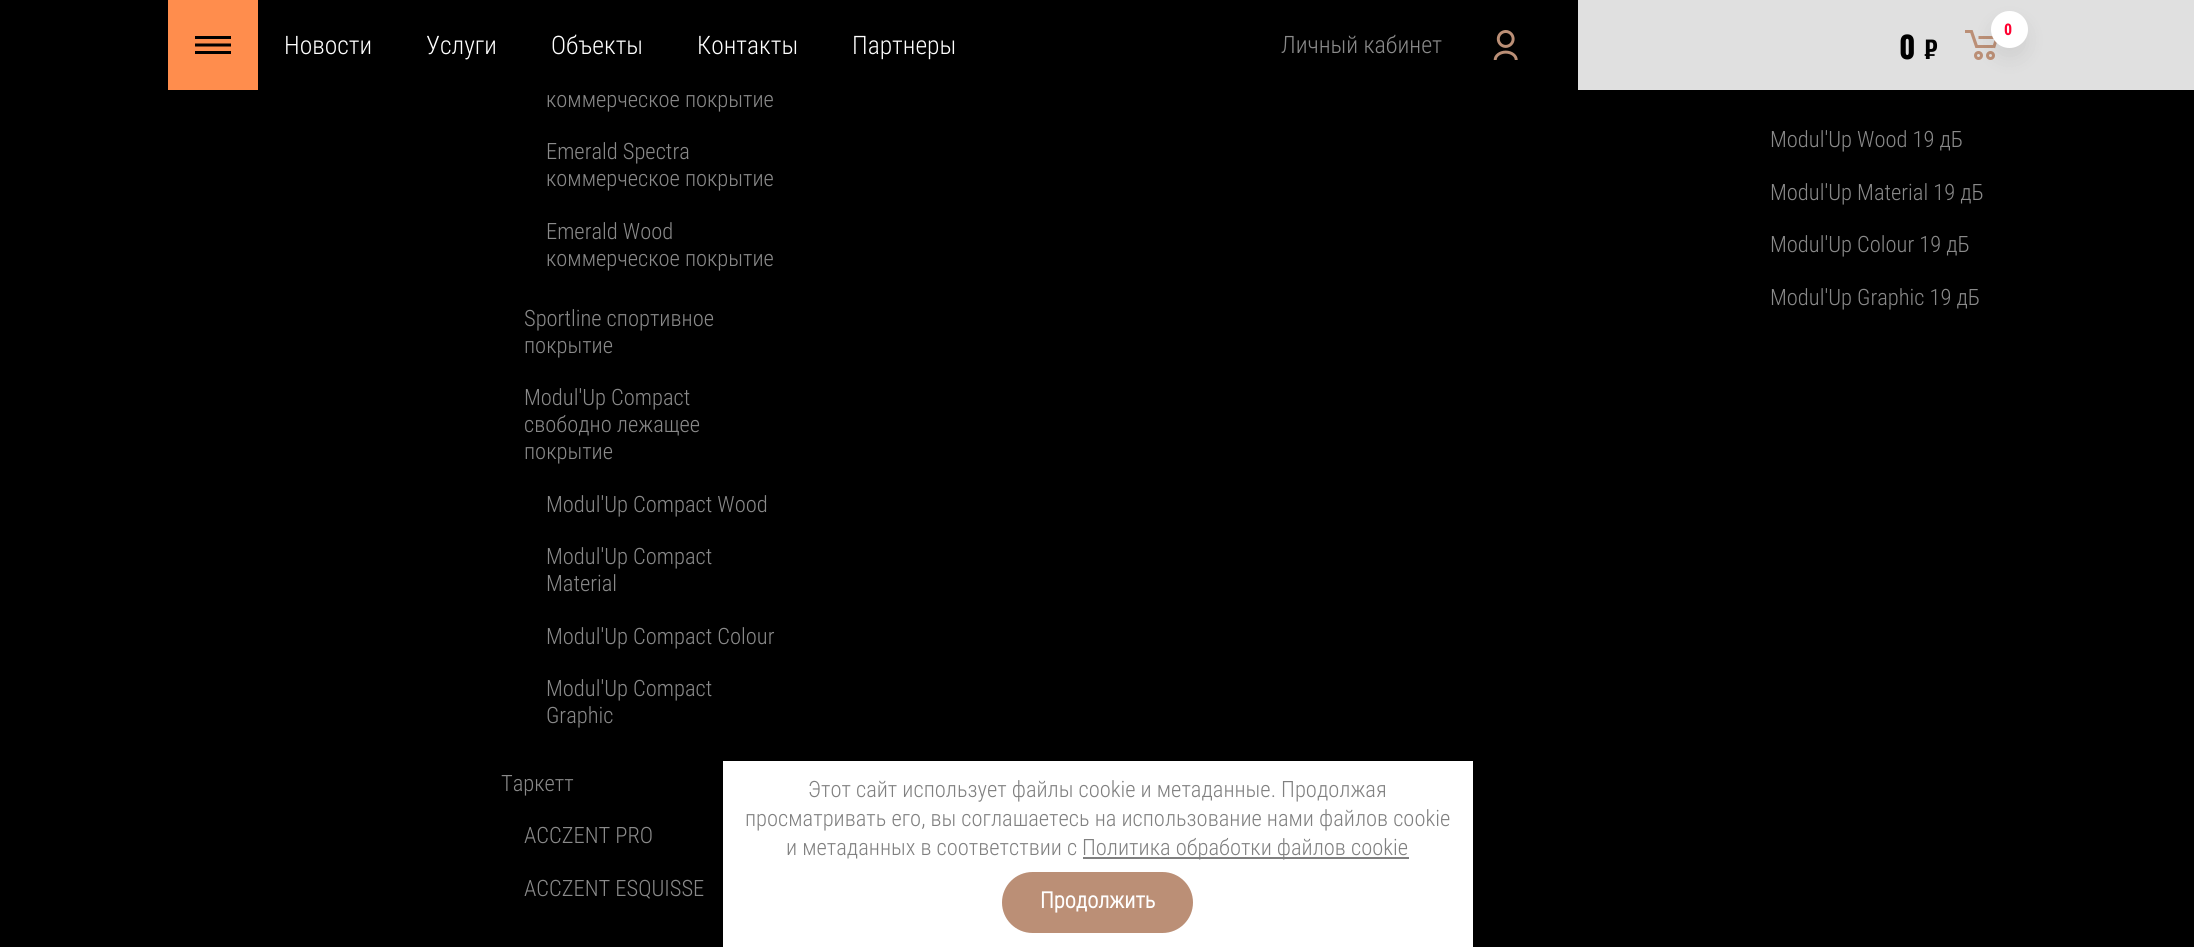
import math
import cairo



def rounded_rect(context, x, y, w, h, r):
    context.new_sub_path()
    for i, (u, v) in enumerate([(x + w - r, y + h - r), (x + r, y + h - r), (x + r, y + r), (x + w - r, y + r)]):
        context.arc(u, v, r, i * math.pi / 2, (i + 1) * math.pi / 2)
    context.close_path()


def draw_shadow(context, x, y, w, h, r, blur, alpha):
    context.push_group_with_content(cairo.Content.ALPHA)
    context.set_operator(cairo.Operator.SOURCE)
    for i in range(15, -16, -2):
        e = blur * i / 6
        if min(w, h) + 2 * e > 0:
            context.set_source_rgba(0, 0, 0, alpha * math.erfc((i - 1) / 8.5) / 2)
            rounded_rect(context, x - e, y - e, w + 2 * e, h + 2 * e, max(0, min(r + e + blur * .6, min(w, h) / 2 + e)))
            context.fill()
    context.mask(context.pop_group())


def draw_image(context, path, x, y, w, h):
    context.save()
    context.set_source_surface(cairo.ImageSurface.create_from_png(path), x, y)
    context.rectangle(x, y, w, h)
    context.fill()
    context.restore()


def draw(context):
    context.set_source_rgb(0, 0, 0)
    context.paint()
    context.set_source_rgb(224 / 255, 224 / 255, 224 / 255)
    context.rectangle(1578, 0, 616, 90)
    context.fill()
    context.set_source_rgb(1, 141 / 255, 77 / 255)
    context.rectangle(168, 0, 90, 90)
    context.fill()
    context.set_source_rgb(0, 0, 0)
    context.new_path()
    context.move_to(195, 54)
    context.line_to(195, 51)
    context.line_to(231, 51)
    context.line_to(231, 54)
    context.close_path()
    context.move_to(195, 43.5)
    context.line_to(231, 43.5)
    context.line_to(231, 46.5)
    context.line_to(195, 46.5)
    context.close_path()
    context.move_to(195, 36)
    context.line_to(231, 36)
    context.line_to(231, 39)
    context.line_to(195, 39)
    context.close_path()
    context.fill()
    draw_image(context, "images/1.png", 1493, 30, 25, 30)
    draw_image(context, "images/2.png", 1965, 30, 32, 30)
    context.set_source_rgb(0, 0, 0)
    draw_shadow(context, 1991, 21, 37, 38, 18.5, 10, 0.07)
    context.set_source_rgb(1, 1, 1)
    context.arc(2009.5, 29.5, 18.5, 0, 2 * math.pi)
    context.fill()
    context.rectangle(723, 761, 750, 186)
    context.fill()
    context.set_source_rgb(128 / 255, 128 / 255, 128 / 255)
    context.rectangle(1083, 857, 326, 2)
    context.fill()
    context.set_source_rgb(187 / 255, 143 / 255, 118 / 255)
    rounded_rect(context, 1002, 872, 191, 61, 30.5)
    context.fill()
    context.select_font_face("Roboto Condensed Light")
    context.set_font_size(25.5)
    context.set_source_rgb(1, 1, 1)
    context.move_to(284, 54)
    context.show_text("Новости")
    context.move_to(426, 54)
    context.show_text("Услуги")
    context.move_to(551, 54)
    context.show_text("Объекты")
    context.move_to(697, 54)
    context.show_text("Контакты")
    context.move_to(852, 54)
    context.show_text("Партнеры")
    context.set_font_size(24)
    context.set_source_rgb(138 / 255, 138 / 255, 138 / 255)
    context.move_to(1281, 53)
    context.show_text("Личный кабинет")
    context.select_font_face("Oswald", cairo.FontSlant.NORMAL, cairo.FontWeight.BOLD)
    context.set_font_size(30)
    context.set_source_rgb(0, 0, 0)
    context.move_to(1899, 59)
    context.show_text("0")
    context.select_font_face("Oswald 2", cairo.FontSlant.NORMAL, cairo.FontWeight.BOLD)
    context.set_font_size(24)
    context.move_to(1924, 59)
    context.show_text("₽")
    context.select_font_face("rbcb", cairo.FontSlant.NORMAL, cairo.FontWeight.BOLD)
    context.set_font_size(16)
    context.set_source_rgb(1, 0, 48 / 255)
    context.move_to(2004, 35)
    context.show_text("0")
    context.select_font_face("Roboto Condensed Light")
    context.set_font_size(22.5)
    context.set_source_rgb(138 / 255, 138 / 255, 138 / 255)
    context.move_to(546, 107)
    context.show_text("коммерческое покрытие")
    context.move_to(546, 159)
    context.show_text("Emerald Spectra")
    context.move_to(546, 186)
    context.show_text("коммерческое покрытие")
    context.move_to(546, 239)
    context.show_text("Emerald Wood")
    context.move_to(546, 266)
    context.show_text("коммерческое покрытие")
    context.move_to(524, 326)
    context.show_text("Sportline спортивное")
    context.move_to(524, 353)
    context.show_text("покрытие")
    context.move_to(524, 405)
    context.show_text("Modul'Up Compact")
    context.move_to(524, 432)
    context.show_text("свободно лежащее")
    context.move_to(524, 459)
    context.show_text("покрытие")
    context.move_to(546, 512)
    context.show_text("Modul'Up Compact Wood")
    context.move_to(546, 564)
    context.show_text("Modul'Up Compact")
    context.move_to(546, 591)
    context.show_text("Material")
    context.move_to(546, 644)
    context.show_text("Modul'Up Compact Colour")
    context.move_to(546, 696)
    context.show_text("Modul'Up Compact")
    context.move_to(546, 723)
    context.show_text("Graphic")
    context.move_to(501, 791)
    context.show_text("Таркетт")
    context.move_to(524, 843)
    context.show_text("ACCZENT PRO")
    context.move_to(524, 896)
    context.show_text("ACCZENT ESQUISSE")
    context.move_to(1770, 147)
    context.show_text("Modul'Up Wood 19 дБ")
    context.move_to(1770, 200)
    context.show_text("Modul'Up Material 19 дБ")
    context.move_to(1770, 252)
    context.show_text("Modul'Up Colour 19 дБ")
    context.move_to(1770, 305)
    context.show_text("Modul'Up Graphic 19 дБ")
    context.set_source_rgb(128 / 255, 128 / 255, 128 / 255)
    context.move_to(808, 797)
    context.show_text("Этот сайт использует файлы cookie и метаданные. Продолжая")
    context.move_to(745, 826)
    context.show_text("просматривать его, вы соглашаетесь на использование нами файлов cookie")
    context.move_to(786, 855)
    context.show_text("и метаданных в соответствии с")
    context.move_to(1082, 855)
    context.show_text("Политика обработки файлов cookie")
    context.select_font_face("Roboto Condensed", cairo.FontSlant.NORMAL, cairo.FontWeight.BOLD)
    context.set_source_rgb(1, 1, 1)
    context.move_to(1040, 908)
    context.show_text("Продолжить")


surface = cairo.ImageSurface(cairo.Format.RGB24, 2194, 947)
context = cairo.Context(surface)
options = cairo.FontOptions()
options.set_hint_metrics(cairo.HintMetrics.OFF)
options.set_hint_style(cairo.HintStyle.NONE)
context.set_font_options(options)
context.set_miter_limit(4)
draw(context)
surface.write_to_png("out.png")
